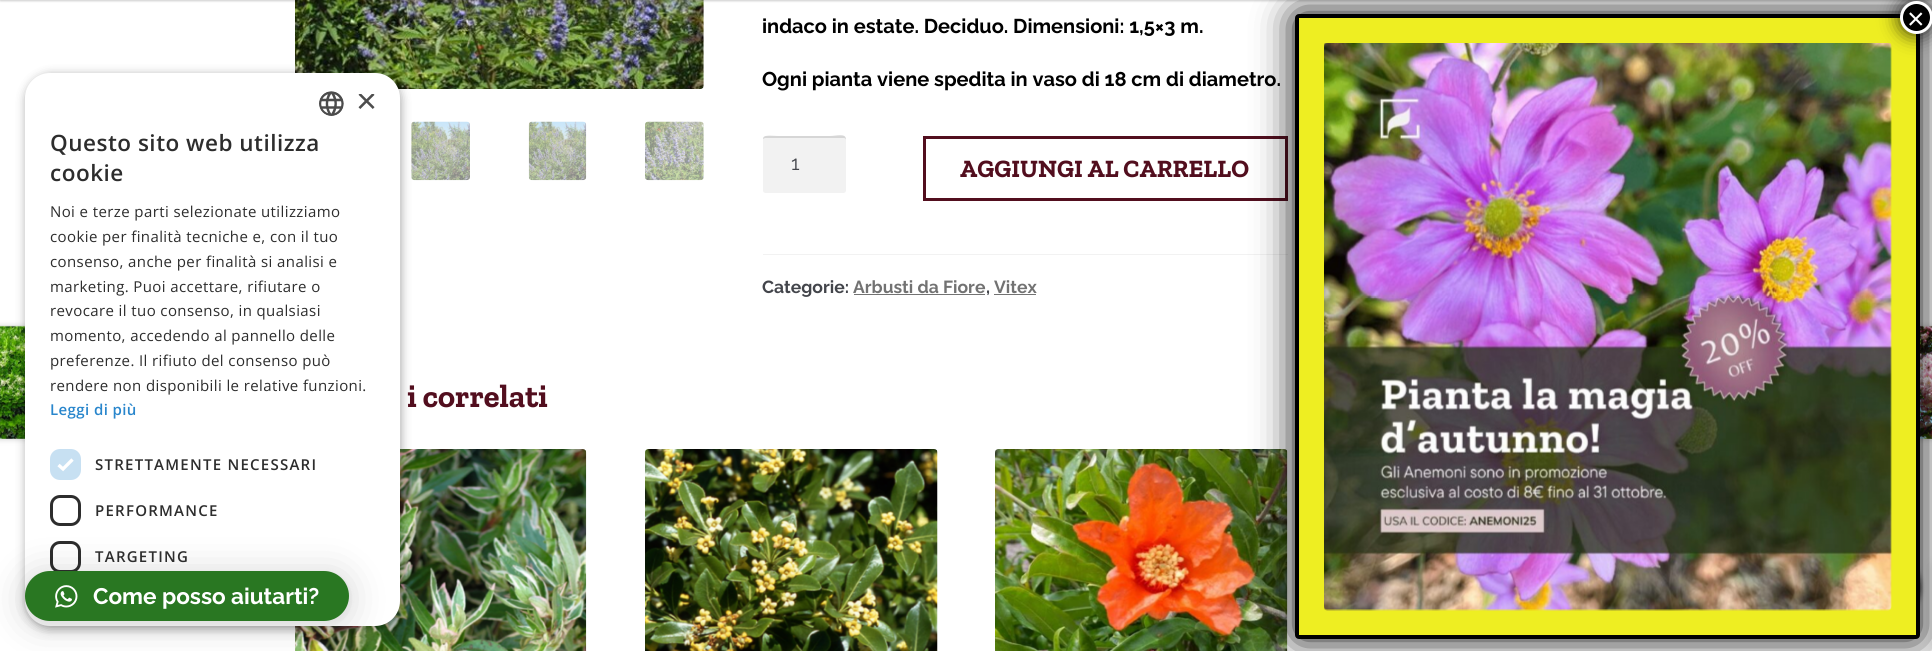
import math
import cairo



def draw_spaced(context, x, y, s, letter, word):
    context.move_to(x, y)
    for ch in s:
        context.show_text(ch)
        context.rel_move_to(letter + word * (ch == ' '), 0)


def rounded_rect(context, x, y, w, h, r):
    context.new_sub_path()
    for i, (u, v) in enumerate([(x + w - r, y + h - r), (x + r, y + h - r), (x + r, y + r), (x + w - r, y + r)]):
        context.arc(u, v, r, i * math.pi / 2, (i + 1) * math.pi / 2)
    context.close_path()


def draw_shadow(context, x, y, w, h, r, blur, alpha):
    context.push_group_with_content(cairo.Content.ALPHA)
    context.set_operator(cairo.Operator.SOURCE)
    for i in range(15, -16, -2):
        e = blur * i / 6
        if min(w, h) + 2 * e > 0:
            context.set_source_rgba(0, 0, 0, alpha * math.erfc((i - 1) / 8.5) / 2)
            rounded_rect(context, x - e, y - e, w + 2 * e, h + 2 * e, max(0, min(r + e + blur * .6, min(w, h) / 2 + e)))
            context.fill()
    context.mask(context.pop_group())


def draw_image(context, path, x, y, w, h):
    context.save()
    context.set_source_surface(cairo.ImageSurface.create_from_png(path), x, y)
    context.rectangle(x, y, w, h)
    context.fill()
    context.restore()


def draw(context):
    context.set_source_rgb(1, 1, 1)
    context.paint()
    context.rectangle(924.5, 137.5, 362, 62)
    context.set_source_rgb(82 / 255, 14 / 255, 30 / 255)
    context.set_line_width(3)
    context.stroke()
    context.set_source_rgb(242 / 255, 242 / 255, 242 / 255)
    context.rectangle(763, 254, 525, 1)
    context.fill()
    context.set_source_rgb(0, 0, 0)
    draw_shadow(context, 1876, 326, 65, 113, 0, 3, 0.2)
    draw_image(context, "images/9.png", 1920, 325, 12, 114)
    draw_image(context, "images/12.png", 995, 449, 293, 202)
    context.set_source_rgb(2 / 255, 2 / 255, 2 / 255)
    draw_shadow(context, 1295, 14, 625, 625, 4, 19, 1)
    context.set_source_rgb(0, 0, 0)
    draw_shadow(context, 1845, 550, 75, 75, 37.5, 2.5, 1)
    draw_shadow(context, 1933, 566, 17, 79, 0, 6, 0.1)
    context.set_source_rgb(238 / 255, 238 / 255, 34 / 255)
    rounded_rect(context, 1297, 16, 621, 621, 2)
    context.fill_preserve()
    context.set_source_rgb(0, 0, 0)
    context.set_line_width(4)
    context.stroke()
    draw_image(context, "images/1.png", 1324, 43, 568, 568)
    context.set_source_rgb(2 / 255, 2 / 255, 2 / 255)
    draw_shadow(context, 1899, 0, 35, 35, 17.5, 9.5, 0.75)
    draw_image(context, "images/4.png", 295, 0, 409, 89)
    context.set_source_rgb(0, 0, 0)
    draw_shadow(context, 0, -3, 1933, 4, 0, 1, 0.2)
    context.set_source_rgb(0, 0, 0)
    context.arc(1916.5, 17.5, 15, 0, 2 * math.pi)
    context.fill_preserve()
    context.set_source_rgb(1, 1, 1)
    context.set_line_width(3)
    context.stroke()
    draw_image(context, "images/5.png", 411, 121, 59, 60)
    context.set_source_rgb(0, 0, 0)
    draw_shadow(context, -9, 326, 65, 113, 0, 3, 0.2)
    context.set_source_rgb(1, 1, 1)
    context.rectangle(0, 326, 25, 113)
    context.fill()
    draw_image(context, "images/8.png", 0, 325, 25, 114)
    draw_image(context, "images/10.png", 295, 449, 292, 202)
    context.set_source_rgb(0, 0, 0)
    draw_shadow(context, 26, 75, 375, 554, 25, 5, 0.35)
    context.set_source_rgb(1, 1, 1)
    rounded_rect(context, 25, 73, 375, 553, 25)
    context.fill()
    rounded_rect(context, 51.5, 496.5, 28, 28, 8.5)
    context.set_source_rgb(45 / 255, 45 / 255, 45 / 255)
    context.stroke()
    rounded_rect(context, 51.5, 542.5, 28, 29, 8.5)
    context.stroke()
    context.set_source_rgb(0, 0, 0)
    draw_shadow(context, 25, 574, 324, 50, 25, 20, 0.16)
    draw_shadow(context, 25, 573, 324, 50, 25, 4, 0.06)
    context.set_source_rgb(41 / 255, 119 / 255, 34 / 255)
    rounded_rect(context, 25, 571, 324, 50, 25)
    context.fill()
    draw_image(context, "images/2.png", 55, 585, 23, 23)
    draw_image(context, "images/3.png", 319, 91, 25, 25)
    context.set_source_rgb(199 / 255, 224 / 255, 242 / 255)
    rounded_rect(context, 50, 449, 31, 31, 10)
    context.fill()
    context.new_path()
    context.move_to(58.5, 465)
    context.line_to(63, 469)
    context.line_to(72.5, 459.5)
    context.set_source_rgb(1, 1, 1)
    context.set_line_width(3.3)
    context.stroke()
    draw_image(context, "images/6.png", 528, 121, 59, 60)
    draw_image(context, "images/7.png", 645, 121, 59, 60)
    context.set_source_rgb(242 / 255, 242 / 255, 242 / 255)
    rounded_rect(context, 763, 136, 83, 57, 2.5)
    context.fill()
    context.set_source_rgba(0, 0, 0, 0.12)
    context.new_path()
    context.move_to(765, 138)
    context.line_to(844, 138)
    context.curve_to(845, 138, 846, 139, 846, 140)
    context.curve_to(846, 132, 836, 136, 830, 136)
    context.line_to(778, 136)
    context.curve_to(773, 136, 763, 134, 763, 139)
    context.close_path()
    context.fill()
    context.set_source_rgb(114 / 255, 114 / 255, 114 / 255)
    context.rectangle(854, 294, 131, 1)
    context.fill()
    context.rectangle(994, 294, 42, 1)
    context.fill()
    draw_image(context, "images/11.png", 645, 449, 293, 202)
    context.select_font_face("Liberation Sans")
    context.set_font_size(30)
    context.set_source_rgb(1, 1, 1)
    context.move_to(1907, 29)
    context.show_text("×")
    context.select_font_face("Raleway", cairo.FontSlant.NORMAL, cairo.FontWeight.BOLD)
    context.set_font_size(22.5)
    context.move_to(93, 604)
    context.show_text("Come posso aiutarti?")
    context.save()
    context.rectangle(356, 94, 19, 19)
    context.clip()
    context.select_font_face("Liberation Sans")
    context.set_font_size(36)
    context.set_source_rgb(77 / 255, 77 / 255, 77 / 255)
    context.move_to(356, 113)
    context.show_text("×")
    context.restore()
    context.select_font_face("Open Sans SemiBold")
    context.set_source_rgb(45 / 255, 45 / 255, 45 / 255)
    draw_spaced(context, 50, 151, "Questo sito web utilizza", 0.5, 0)
    draw_spaced(context, 50, 181, "cookie", 0.5, 0)
    context.select_font_face("Open Sans")
    context.set_font_size(15)
    draw_spaced(context, 50, 217, "Noi e terze parti selezionate utilizziamo", 0.4, 0)
    draw_spaced(context, 50, 242, "cookie per finalità tecniche e, con il tuo", 0.4, 0)
    draw_spaced(context, 50, 267, "consenso, anche per finalità si analisi e", 0.4, 0)
    draw_spaced(context, 50, 292, "marketing. Puoi accettare, rifiutare o", 0.4, 0)
    draw_spaced(context, 50, 316, "revocare il tuo consenso, in qualsiasi", 0.4, 0)
    draw_spaced(context, 50, 341, "momento, accedendo al pannello delle", 0.4, 0)
    draw_spaced(context, 50, 366, "preferenze. Il rifiuto del consenso può", 0.4, 0)
    draw_spaced(context, 50, 391, "rendere non disponibili le relative funzioni.", 0.4, 0)
    context.select_font_face("Open Sans SemiBold")
    context.set_source_rgb(41 / 255, 134 / 255, 204 / 255)
    draw_spaced(context, 50, 415, "Leggi di più", 0.4, 0)
    context.set_source_rgb(45 / 255, 45 / 255, 45 / 255)
    draw_spaced(context, 95, 470, "STRETTAMENTE NECESSARI", 1.25, 0)
    draw_spaced(context, 95, 516, "PERFORMANCE", 1.25, 0)
    draw_spaced(context, 95, 562, "TARGETING", 1.25, 0)
    context.select_font_face("Raleway", cairo.FontSlant.NORMAL, cairo.FontWeight.BOLD)
    context.set_font_size(20)
    context.set_source_rgb(0, 0, 0)
    context.move_to(762, 33)
    context.show_text("indaco in estate. Deciduo. Dimensioni: 1,5×3 m.")
    context.move_to(762, 86)
    context.show_text("Ogni pianta viene spedita in vaso di 18 cm di diametro.")
    context.select_font_face("Raleway")
    context.set_source_rgb(67 / 255, 69 / 255, 75 / 255)
    context.move_to(791, 170)
    context.show_text("1")
    context.select_font_face("Zilla Slab", cairo.FontSlant.NORMAL, cairo.FontWeight.BOLD)
    context.set_font_size(25)
    context.set_source_rgb(82 / 255, 14 / 255, 30 / 255)
    context.move_to(960, 177)
    context.show_text("AGGIUNGI AL CARRELLO")
    context.select_font_face("Raleway", cairo.FontSlant.NORMAL, cairo.FontWeight.BOLD)
    context.set_font_size(17.5)
    context.set_source_rgb(67 / 255, 69 / 255, 75 / 255)
    context.move_to(762, 293)
    context.show_text("Categorie:")
    context.set_source_rgb(114 / 255, 114 / 255, 114 / 255)
    context.move_to(853, 293)
    context.show_text("Arbusti da Fiore")
    context.set_source_rgb(67 / 255, 69 / 255, 75 / 255)
    context.move_to(986, 293)
    context.show_text(",")
    context.set_source_rgb(114 / 255, 114 / 255, 114 / 255)
    context.move_to(994, 293)
    context.show_text("Vitex")
    context.select_font_face("Zilla Slab", cairo.FontSlant.NORMAL, cairo.FontWeight.BOLD)
    context.set_font_size(32.5)
    context.set_source_rgb(82 / 255, 14 / 255, 30 / 255)
    context.move_to(407, 407)
    context.show_text("i correlati")


surface = cairo.ImageSurface(cairo.Format.RGB24, 1932, 651)
context = cairo.Context(surface)
options = cairo.FontOptions()
options.set_hint_metrics(cairo.HintMetrics.OFF)
options.set_hint_style(cairo.HintStyle.NONE)
context.set_font_options(options)
context.set_miter_limit(4)
draw(context)
surface.write_to_png("out.png")
